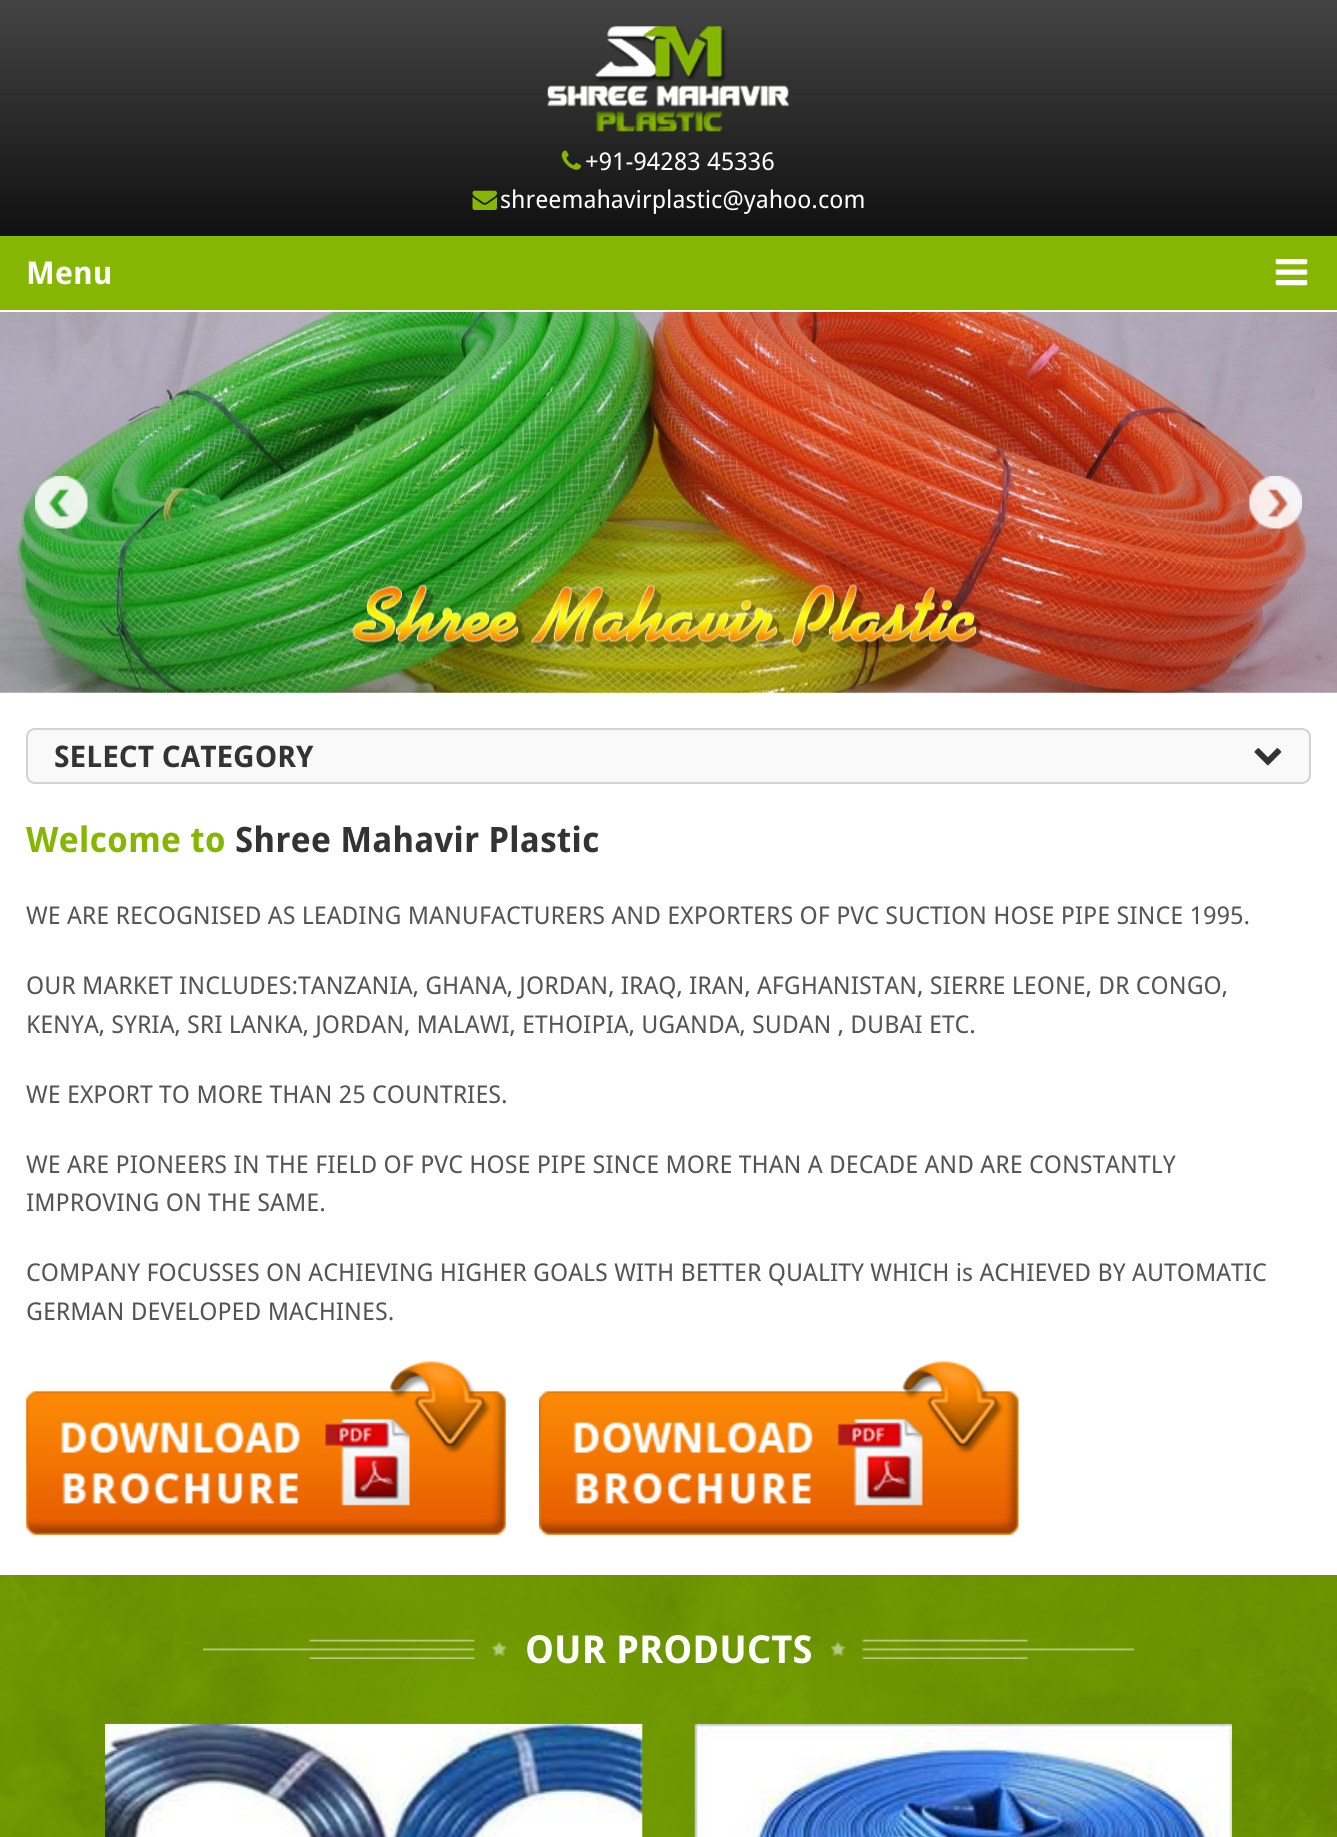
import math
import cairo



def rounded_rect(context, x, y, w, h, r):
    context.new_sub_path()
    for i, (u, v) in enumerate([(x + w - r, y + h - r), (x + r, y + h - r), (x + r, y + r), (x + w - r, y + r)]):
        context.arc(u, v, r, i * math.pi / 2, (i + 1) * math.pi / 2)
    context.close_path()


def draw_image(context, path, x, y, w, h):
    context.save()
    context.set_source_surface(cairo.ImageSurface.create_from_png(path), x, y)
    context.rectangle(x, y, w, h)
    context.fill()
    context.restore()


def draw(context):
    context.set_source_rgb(1, 1, 1)
    context.paint()
    gradient = cairo.LinearGradient(669, 0, 669, 310)
    gradient.add_color_stop_rgba(0, 68 / 255, 68 / 255, 68 / 255, 1)
    gradient.add_color_stop_rgba(1, 0, 0, 0, 1)
    context.set_source(gradient)
    context.rectangle(0, 0, 1337, 236)
    context.fill()
    draw_image(context, "images/1.png", 547, 26, 243, 106)
    draw_image(context, "images/2.png", 561, 150, 20, 20)
    draw_image(context, "images/3.png", 472, 190, 25, 20)
    context.set_source_rgb(133 / 255, 182 / 255, 2 / 255)
    context.rectangle(0, 236, 1337, 74)
    context.fill()
    draw_image(context, "images/4.png", 1275, 259, 33, 27)
    draw_image(context, "images/5.png", 0, 312, 1337, 381)
    draw_image(context, "images/6.png", 35, 476, 53, 53)
    draw_image(context, "images/7.png", 1249, 476, 53, 53)
    context.set_source_rgb(249 / 255, 249 / 255, 249 / 255)
    rounded_rect(context, 27, 729, 1283, 54, 8)
    context.fill_preserve()
    context.set_source_rgb(211 / 255, 211 / 255, 211 / 255)
    context.stroke()
    draw_image(context, "images/8.png", 1254, 748, 28, 18)
    draw_image(context, "images/9.png", 26, 1361, 480, 174)
    draw_image(context, "images/10.png", 539, 1361, 480, 174)
    draw_image(context, "images/11.png", 0, 1575, 1337, 262)
    draw_image(context, "images/12.png", 203, 1639, 304, 20)
    draw_image(context, "images/13.png", 830, 1639, 304, 20)
    draw_image(context, "images/14.png", 105, 1723, 538, 114)
    draw_image(context, "images/15.png", 694, 1723, 538, 114)
    context.select_font_face("Droid Sans")
    context.set_font_size(24.5)
    context.set_source_rgb(1, 1, 1)
    context.move_to(585, 170)
    context.show_text("+91-94283 45336")
    context.move_to(500, 208)
    context.show_text("shreemahavirplastic@yahoo.com")
    context.select_font_face("Droid Sans", cairo.FontSlant.NORMAL, cairo.FontWeight.BOLD)
    context.set_font_size(31.5)
    context.move_to(26, 284)
    context.show_text("Menu")
    context.set_font_size(29.75)
    context.set_source_rgb(51 / 255, 51 / 255, 51 / 255)
    context.move_to(54, 767)
    context.show_text("SELECT CATEGORY")
    context.set_font_size(35)
    context.set_source_rgb(133 / 255, 182 / 255, 2 / 255)
    context.move_to(26, 852)
    context.show_text("Welcome to")
    context.set_source_rgb(51 / 255, 51 / 255, 51 / 255)
    context.move_to(235, 852)
    context.show_text("Shree Mahavir Plastic")
    context.select_font_face("Droid Sans")
    context.set_font_size(24.5)
    context.set_source_rgb(85 / 255, 85 / 255, 85 / 255)
    context.move_to(26, 924)
    context.show_text("WE ARE RECOGNISED AS LEADING MANUFACTURERS AND EXPORTERS OF PVC SUCTION HOSE PIPE SINCE 1995.")
    context.move_to(26, 994)
    context.show_text("OUR MARKET INCLUDES:TANZANIA, GHANA, JORDAN, IRAQ, IRAN, AFGHANISTAN, SIERRE LEONE, DR CONGO,")
    context.move_to(26, 1033)
    context.show_text("KENYA, SYRIA, SRI LANKA, JORDAN, MALAWI, ETHOIPIA, UGANDA, SUDAN , DUBAI ETC.")
    context.move_to(26, 1103)
    context.show_text("WE EXPORT TO MORE THAN 25 COUNTRIES.")
    context.move_to(26, 1173)
    context.show_text("WE ARE PIONEERS IN THE FIELD OF PVC HOSE PIPE SINCE MORE THAN A DECADE AND ARE CONSTANTLY")
    context.move_to(26, 1211)
    context.show_text("IMPROVING ON THE SAME.")
    context.move_to(26, 1281)
    context.show_text("COMPANY FOCUSSES ON ACHIEVING HIGHER GOALS WITH BETTER QUALITY WHICH is ACHIEVED BY AUTOMATIC")
    context.move_to(26, 1320)
    context.show_text("GERMAN DEVELOPED MACHINES.")
    context.select_font_face("Droid Sans", cairo.FontSlant.NORMAL, cairo.FontWeight.BOLD)
    context.set_font_size(38.5)
    context.set_source_rgb(1, 1, 1)
    context.move_to(525, 1663)
    context.show_text("OUR PRODUCTS")


surface = cairo.ImageSurface(cairo.Format.RGB24, 1337, 1837)
context = cairo.Context(surface)
options = cairo.FontOptions()
options.set_hint_metrics(cairo.HintMetrics.OFF)
options.set_hint_style(cairo.HintStyle.NONE)
context.set_font_options(options)
context.set_miter_limit(4)
draw(context)
surface.write_to_png("out.png")
